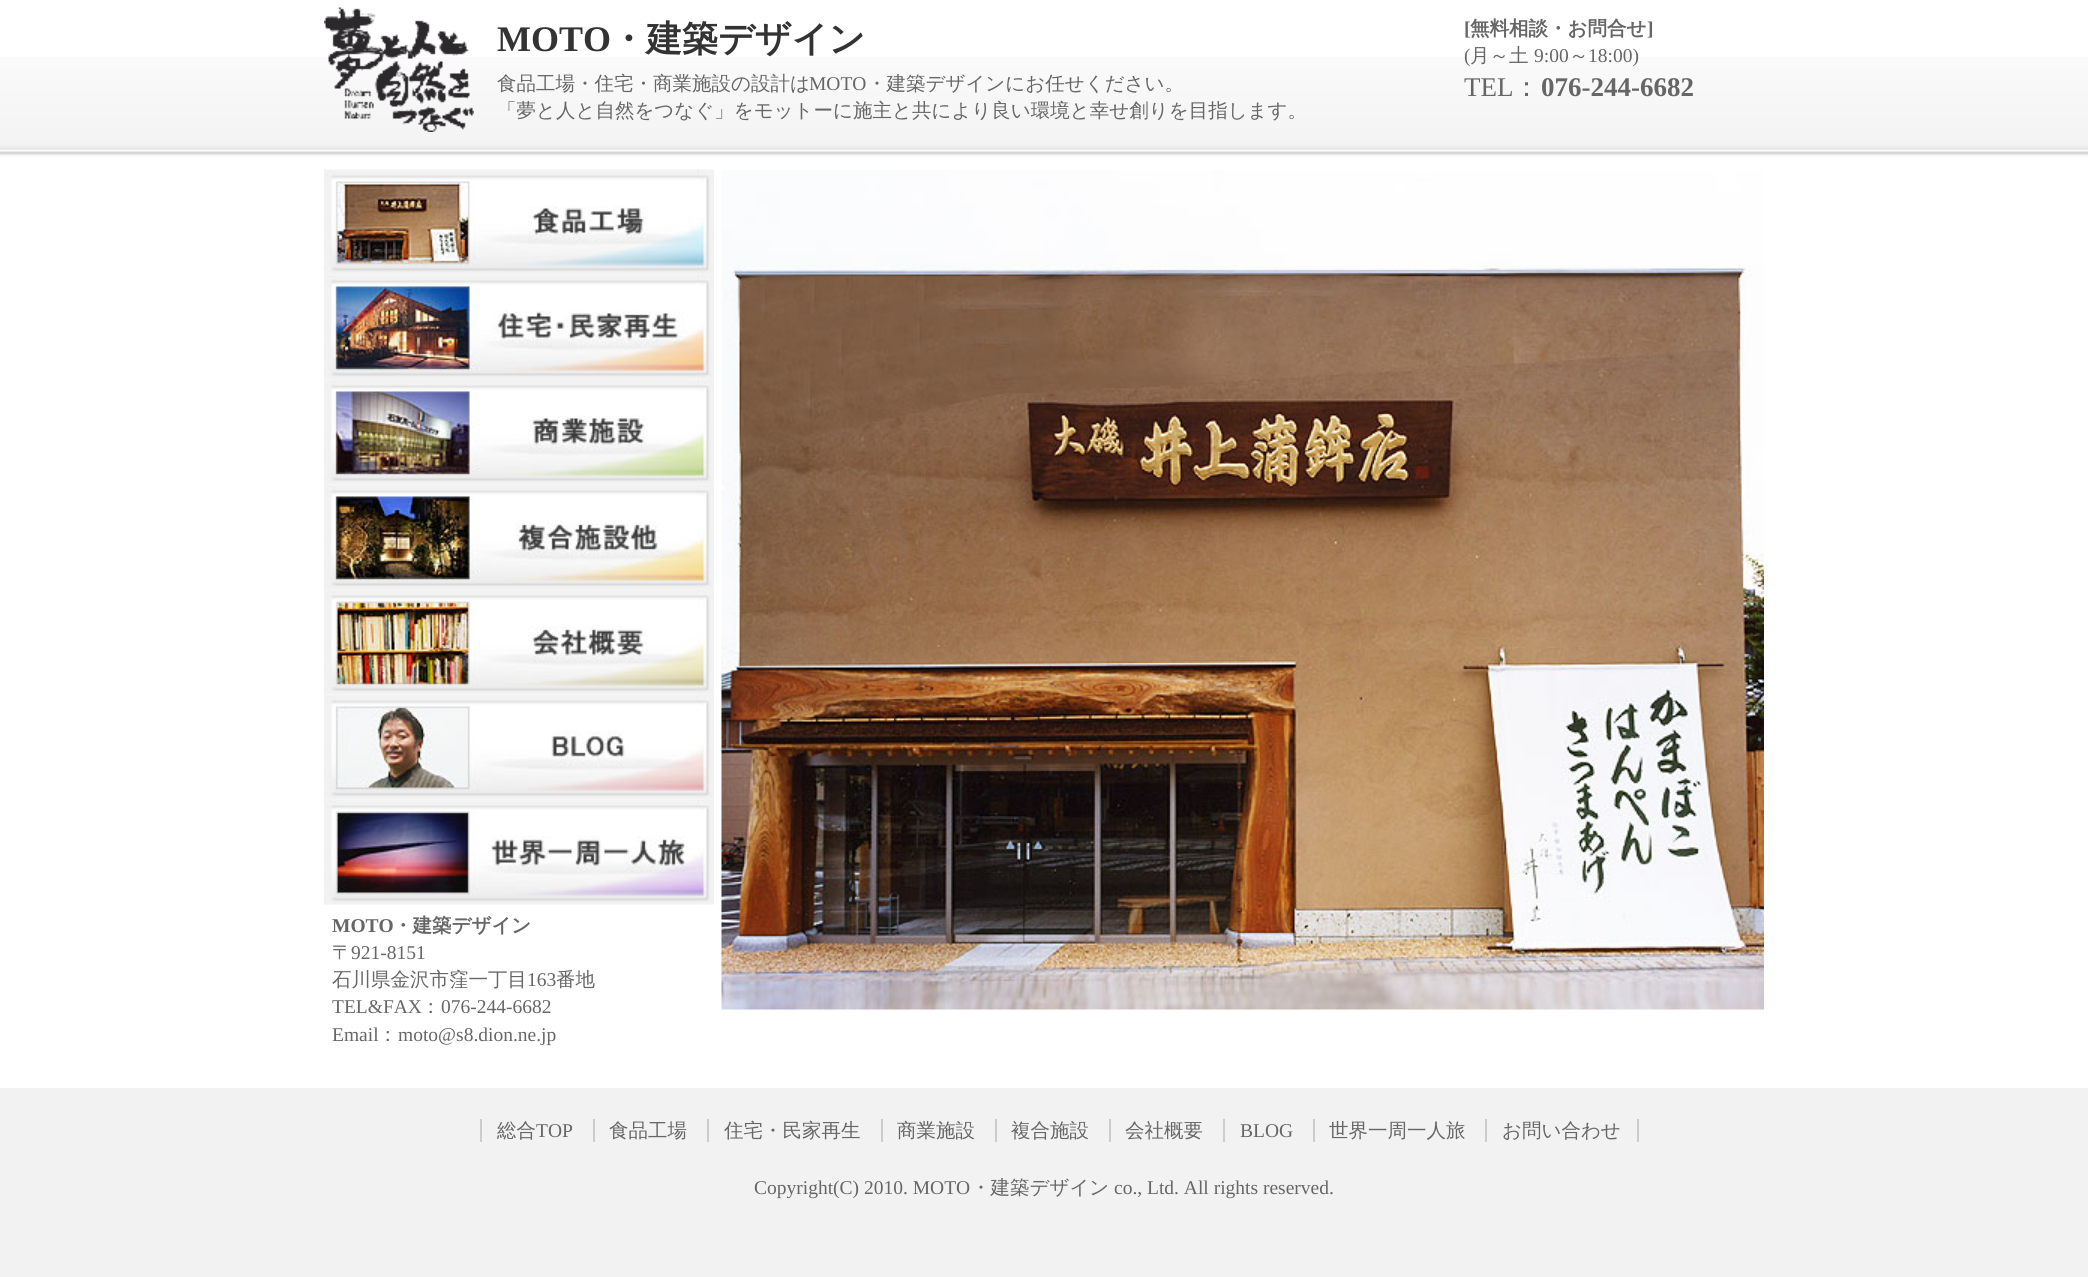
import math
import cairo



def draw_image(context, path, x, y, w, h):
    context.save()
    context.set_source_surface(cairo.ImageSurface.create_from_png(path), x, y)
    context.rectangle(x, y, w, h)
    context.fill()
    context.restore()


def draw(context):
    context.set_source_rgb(242 / 255, 242 / 255, 242 / 255)
    context.paint()
    context.set_source_rgb(1, 1, 1)
    context.rectangle(0, 0, 2088, 1088)
    context.fill()
    draw_image(context, "images/1.png", 0, 57, 2088, 100)
    draw_image(context, "images/2.png", 324, 7, 150, 125)
    draw_image(context, "images/3.png", 324, 169, 390, 106)
    draw_image(context, "images/4.png", 324, 274, 390, 106)
    draw_image(context, "images/5.png", 324, 379, 390, 106)
    draw_image(context, "images/6.png", 324, 484, 390, 106)
    draw_image(context, "images/7.png", 324, 589, 390, 106)
    draw_image(context, "images/8.png", 324, 694, 390, 106)
    draw_image(context, "images/9.png", 324, 799, 390, 106)
    draw_image(context, "images/10.png", 721, 170, 1043, 840)
    context.set_source_rgb(204 / 255, 204 / 255, 204 / 255)
    context.rectangle(480, 1119, 2, 23)
    context.fill()
    context.rectangle(593, 1119, 2, 23)
    context.fill()
    context.rectangle(707, 1119, 2, 23)
    context.fill()
    context.rectangle(881, 1119, 2, 23)
    context.fill()
    context.rectangle(995, 1119, 2, 23)
    context.fill()
    context.rectangle(1109, 1119, 2, 23)
    context.fill()
    context.rectangle(1223, 1119, 2, 23)
    context.fill()
    context.rectangle(1313, 1119, 2, 23)
    context.fill()
    context.rectangle(1637, 1119, 2, 23)
    context.fill()
    context.rectangle(1485, 1119, 2, 23)
    context.fill()
    context.select_font_face("Liberation Serif", cairo.FontSlant.NORMAL, cairo.FontWeight.BOLD)
    context.set_font_size(36)
    context.set_source_rgb(51 / 255, 51 / 255, 51 / 255)
    context.move_to(497, 51)
    context.show_text("MOTO")
    context.select_font_face("WenQuanYi Zen Hei", cairo.FontSlant.NORMAL, cairo.FontWeight.BOLD)
    context.move_to(610, 51)
    context.show_text("・建築デザイン")
    context.select_font_face("WenQuanYi Zen Hei Medium")
    context.set_font_size(19.5)
    context.set_source_rgb(102 / 255, 102 / 255, 102 / 255)
    context.move_to(497, 90)
    context.show_text("食品工場・住宅・商業施設の設計は")
    context.select_font_face("Liberation Serif")
    context.move_to(809, 90)
    context.show_text("MOTO")
    context.select_font_face("WenQuanYi Zen Hei Medium")
    context.move_to(867, 90)
    context.show_text("・建築デザインにお任せください。")
    context.move_to(497, 117)
    context.show_text("「夢と人と自然をつなぐ」をモットーに施主と共により良い環境と幸せ創りを目指します。")
    context.select_font_face("Liberation Serif", cairo.FontSlant.NORMAL, cairo.FontWeight.BOLD)
    context.move_to(1464, 35)
    context.show_text("[")
    context.select_font_face("WenQuanYi Zen Hei", cairo.FontSlant.NORMAL, cairo.FontWeight.BOLD)
    context.move_to(1470, 35)
    context.show_text("無料相談・お問合せ")
    context.select_font_face("Liberation Serif", cairo.FontSlant.NORMAL, cairo.FontWeight.BOLD)
    context.move_to(1647, 35)
    context.show_text("]")
    context.select_font_face("Liberation Serif")
    context.move_to(1464, 62)
    context.show_text("(")
    context.select_font_face("WenQuanYi Zen Hei Medium")
    context.move_to(1470, 62)
    context.show_text("月～土")
    context.select_font_face("Liberation Serif")
    context.move_to(1534, 62)
    context.show_text("9:00")
    context.select_font_face("WenQuanYi Zen Hei Medium")
    context.move_to(1569, 62)
    context.show_text("～")
    context.select_font_face("Liberation Serif")
    context.move_to(1588, 62)
    context.show_text("18:00)")
    context.set_font_size(27)
    context.move_to(1464, 96)
    context.show_text("TEL")
    context.select_font_face("WenQuanYi Zen Hei Medium")
    context.move_to(1513, 96)
    context.show_text("：")
    context.select_font_face("Liberation Serif", cairo.FontSlant.NORMAL, cairo.FontWeight.BOLD)
    context.move_to(1541, 96)
    context.show_text("076-244-6682")
    context.set_font_size(19.5)
    context.move_to(332, 932)
    context.show_text("MOTO")
    context.select_font_face("WenQuanYi Zen Hei", cairo.FontSlant.NORMAL, cairo.FontWeight.BOLD)
    context.move_to(393, 932)
    context.show_text("・建築デザイン")
    context.select_font_face("WenQuanYi Zen Hei Medium")
    context.move_to(332, 959)
    context.show_text("〒")
    context.select_font_face("Liberation Serif")
    context.move_to(351, 959)
    context.show_text("921-8151")
    context.select_font_face("WenQuanYi Zen Hei Medium")
    context.move_to(332, 986)
    context.show_text("石川県金沢市窪一丁目")
    context.select_font_face("Liberation Serif")
    context.move_to(527, 986)
    context.show_text("163")
    context.select_font_face("WenQuanYi Zen Hei Medium")
    context.move_to(556, 986)
    context.show_text("番地")
    context.select_font_face("Liberation Serif")
    context.move_to(332, 1013)
    context.show_text("TEL&FAX")
    context.select_font_face("WenQuanYi Zen Hei Medium")
    context.move_to(421, 1013)
    context.show_text("：")
    context.select_font_face("Liberation Serif")
    context.move_to(441, 1013)
    context.show_text("076-244-6682")
    context.move_to(332, 1041)
    context.show_text("Email")
    context.select_font_face("WenQuanYi Zen Hei Medium")
    context.move_to(378, 1041)
    context.show_text("：")
    context.select_font_face("Liberation Serif")
    context.move_to(398, 1041)
    context.show_text("moto@s8.dion.ne.jp")
    context.select_font_face("WenQuanYi Zen Hei Medium")
    context.move_to(497, 1137)
    context.show_text("総合")
    context.select_font_face("Liberation Serif")
    context.move_to(536, 1137)
    context.show_text("TOP")
    context.select_font_face("WenQuanYi Zen Hei Medium")
    context.move_to(609, 1137)
    context.show_text("食品工場")
    context.move_to(724, 1137)
    context.show_text("住宅・民家再生")
    context.move_to(897, 1137)
    context.show_text("商業施設")
    context.move_to(1011, 1137)
    context.show_text("複合施設")
    context.move_to(1125, 1137)
    context.show_text("会社概要")
    context.select_font_face("Liberation Serif")
    context.move_to(1240, 1137)
    context.show_text("BLOG")
    context.select_font_face("WenQuanYi Zen Hei Medium")
    context.move_to(1329, 1137)
    context.show_text("世界一周一人旅")
    context.move_to(1502, 1137)
    context.show_text("お問い合わせ")
    context.select_font_face("Liberation Serif")
    context.move_to(754, 1194)
    context.show_text("Copyright(C) 2010. MOTO")
    context.select_font_face("WenQuanYi Zen Hei Medium")
    context.move_to(971, 1194)
    context.show_text("・建築デザイン")
    context.select_font_face("Liberation Serif")
    context.move_to(1114, 1194)
    context.show_text("co., Ltd. All rights reserved.")


surface = cairo.ImageSurface(cairo.Format.RGB24, 2088, 1277)
context = cairo.Context(surface)
options = cairo.FontOptions()
options.set_hint_metrics(cairo.HintMetrics.OFF)
options.set_hint_style(cairo.HintStyle.NONE)
context.set_font_options(options)
context.set_miter_limit(4)
draw(context)
surface.write_to_png("out.png")
